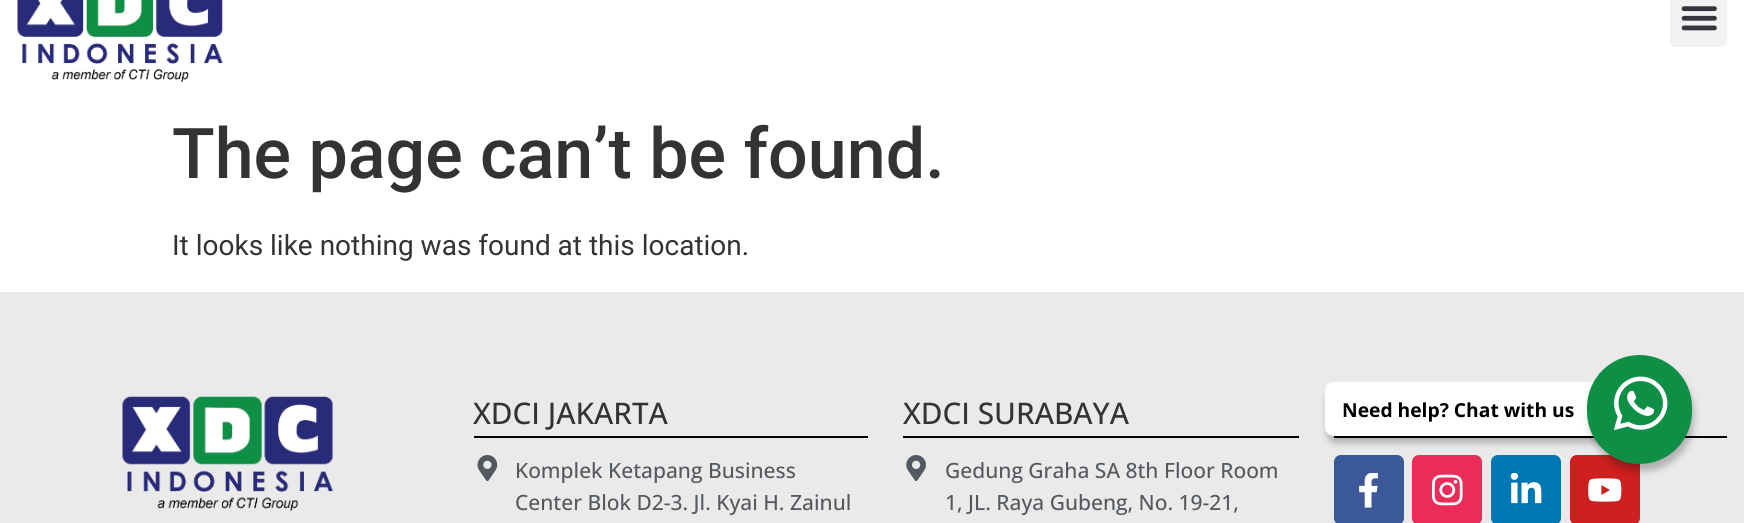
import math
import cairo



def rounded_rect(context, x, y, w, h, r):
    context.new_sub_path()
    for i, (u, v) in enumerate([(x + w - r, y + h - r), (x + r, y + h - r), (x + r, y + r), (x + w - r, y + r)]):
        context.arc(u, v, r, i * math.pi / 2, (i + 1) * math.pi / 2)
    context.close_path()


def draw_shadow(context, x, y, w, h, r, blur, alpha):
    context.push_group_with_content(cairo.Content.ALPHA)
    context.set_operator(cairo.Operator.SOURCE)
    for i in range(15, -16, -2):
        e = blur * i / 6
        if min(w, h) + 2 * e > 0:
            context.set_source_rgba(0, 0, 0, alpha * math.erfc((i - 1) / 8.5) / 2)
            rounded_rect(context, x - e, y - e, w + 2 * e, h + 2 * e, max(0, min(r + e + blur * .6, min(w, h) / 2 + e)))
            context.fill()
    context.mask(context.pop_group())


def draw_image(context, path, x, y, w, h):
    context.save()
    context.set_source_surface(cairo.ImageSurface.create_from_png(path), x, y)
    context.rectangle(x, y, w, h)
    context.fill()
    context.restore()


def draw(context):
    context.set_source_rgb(1, 1, 1)
    context.paint()
    context.set_source_rgb(234 / 255, 234 / 255, 234 / 255)
    context.rectangle(0, 292, 1744, 231)
    context.fill()
    draw_image(context, "images/1.png", 122, 396, 211, 115)
    context.set_source_rgb(0, 0, 0)
    context.rectangle(474, 436, 394, 2)
    context.fill()
    draw_image(context, "images/2.png", 477, 455, 21, 26)
    context.rectangle(903, 436, 396, 2)
    context.fill()
    draw_image(context, "images/3.png", 906, 455, 20, 26)
    context.rectangle(1334, 436, 393, 2)
    context.fill()
    context.set_source_rgb(59 / 255, 89 / 255, 152 / 255)
    rounded_rect(context, 1334, 455, 70, 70, 7)
    context.fill()
    draw_image(context, "images/4.png", 1359, 473, 19, 35)
    context.set_source_rgb(234 / 255, 44 / 255, 89 / 255)
    rounded_rect(context, 1412, 455, 70, 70, 7)
    context.fill()
    draw_image(context, "images/5.png", 1431, 474, 32, 32)
    context.set_source_rgb(0, 119 / 255, 181 / 255)
    rounded_rect(context, 1491, 455, 70, 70, 7)
    context.fill()
    draw_image(context, "images/6.png", 1510, 473, 32, 31)
    context.set_source_rgb(205 / 255, 32 / 255, 31 / 255)
    rounded_rect(context, 1570, 455, 70, 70, 7)
    context.fill()
    draw_image(context, "images/7.png", 1588, 478, 34, 24)
    draw_image(context, "images/8.png", 17, 0, 206, 82)
    context.set_source_rgb(242 / 255, 242 / 255, 242 / 255)
    rounded_rect(context, 1670, -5, 57, 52, 5)
    context.fill()
    draw_image(context, "images/9.png", 1681, 6, 36, 25)
    context.set_source_rgb(0, 0, 0)
    draw_shadow(context, 1327, 389, 315, 54, 9, 3.5, 0.25)
    context.set_source_rgb(1, 1, 1)
    rounded_rect(context, 1325, 382, 315, 54, 9)
    context.fill()
    context.set_source_rgb(0, 0, 0)
    draw_shadow(context, 1589, 362, 105, 109, 52.5, 3.5, 0.25)
    context.set_source_rgb(15 / 255, 143 / 255, 70 / 255)
    rounded_rect(context, 1587, 355, 105, 109, 52.5)
    context.fill()
    draw_image(context, "images/10.png", 1613, 376, 55, 55)
    context.select_font_face("Roboto Medium")
    context.set_font_size(70)
    context.set_source_rgb(51 / 255, 51 / 255, 51 / 255)
    context.move_to(172, 178)
    context.show_text("The page can’t be found.")
    context.select_font_face("Roboto")
    context.set_font_size(28)
    context.move_to(172, 255)
    context.show_text("It looks like nothing was found at this location.")
    context.select_font_face("Open Sans Medium")
    context.set_font_size(29.75)
    context.move_to(473, 424)
    context.show_text("XDCI JAKARTA")
    context.set_font_size(21)
    context.set_source_rgb(84 / 255, 89 / 255, 95 / 255)
    context.move_to(515, 478)
    context.show_text("Komplek Ketapang Business")
    context.move_to(515, 510)
    context.show_text("Center Blok D2-3. Jl. Kyai H. Zainul")
    context.set_font_size(29.75)
    context.set_source_rgb(51 / 255, 51 / 255, 51 / 255)
    context.move_to(903, 424)
    context.show_text("XDCI SURABAYA")
    context.set_font_size(21)
    context.set_source_rgb(84 / 255, 89 / 255, 95 / 255)
    context.move_to(945, 478)
    context.show_text("Gedung Graha SA 8th Floor Room")
    context.move_to(945, 510)
    context.show_text("1, JL. Raya Gubeng, No. 19-21,")
    context.select_font_face("Open Sans", cairo.FontSlant.NORMAL, cairo.FontWeight.BOLD)
    context.set_font_size(19.25)
    context.set_source_rgb(0, 0, 0)
    context.move_to(1342, 417)
    context.show_text("Need help? Chat with us")


surface = cairo.ImageSurface(cairo.Format.RGB24, 1744, 523)
context = cairo.Context(surface)
options = cairo.FontOptions()
options.set_hint_metrics(cairo.HintMetrics.OFF)
options.set_hint_style(cairo.HintStyle.NONE)
context.set_font_options(options)
context.set_miter_limit(4)
draw(context)
surface.write_to_png("out.png")
